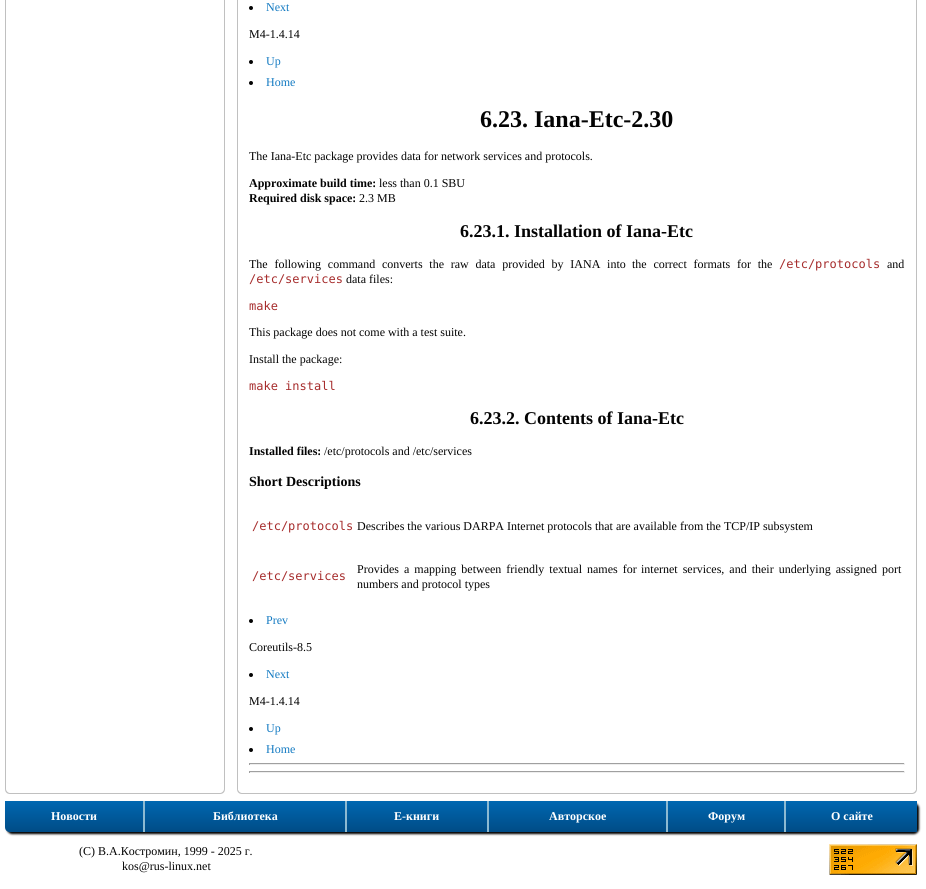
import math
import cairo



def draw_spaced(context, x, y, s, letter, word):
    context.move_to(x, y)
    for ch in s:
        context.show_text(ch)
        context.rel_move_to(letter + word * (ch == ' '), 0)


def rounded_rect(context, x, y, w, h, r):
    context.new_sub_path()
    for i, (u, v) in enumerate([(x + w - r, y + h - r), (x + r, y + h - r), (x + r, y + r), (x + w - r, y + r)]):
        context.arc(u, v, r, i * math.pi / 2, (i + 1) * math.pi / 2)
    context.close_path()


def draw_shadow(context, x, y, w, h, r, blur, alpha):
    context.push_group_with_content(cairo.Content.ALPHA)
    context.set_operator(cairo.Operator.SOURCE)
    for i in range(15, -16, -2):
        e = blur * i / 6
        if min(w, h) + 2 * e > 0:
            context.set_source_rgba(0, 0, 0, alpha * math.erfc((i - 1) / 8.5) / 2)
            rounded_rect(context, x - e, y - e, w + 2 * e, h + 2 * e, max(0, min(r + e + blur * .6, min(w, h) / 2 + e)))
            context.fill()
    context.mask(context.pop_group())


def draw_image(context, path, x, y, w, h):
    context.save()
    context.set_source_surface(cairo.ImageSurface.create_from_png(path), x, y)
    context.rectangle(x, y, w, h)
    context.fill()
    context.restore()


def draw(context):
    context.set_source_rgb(1, 1, 1)
    context.paint()
    context.set_source_rgb(192 / 255, 192 / 255, 192 / 255)
    context.set_fill_rule(cairo.FillRule.EVEN_ODD)
    context.new_path()
    context.move_to(10, -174)
    context.line_to(220, -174)
    context.curve_to(223, -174, 225, -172, 225, -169)
    context.line_to(225, 789)
    context.curve_to(225, 792, 223, 794, 220, 794)
    context.line_to(10, 794)
    context.curve_to(7, 794, 5, 792, 5, 789)
    context.line_to(5, -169)
    context.curve_to(5, -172, 7, -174, 10, -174)
    context.close_path()
    context.move_to(10, -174)
    context.line_to(220, -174)
    context.curve_to(222, -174, 224, -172, 224, -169)
    context.line_to(224, 789)
    context.curve_to(224, 791, 222, 793, 220, 793)
    context.line_to(10, 793)
    context.curve_to(8, 793, 6, 791, 6, 789)
    context.line_to(6, -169)
    context.curve_to(6, -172, 8, -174, 10, -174)
    context.close_path()
    context.fill()
    context.new_path()
    context.move_to(242, -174)
    context.line_to(912, -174)
    context.curve_to(915, -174, 917, -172, 917, -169)
    context.line_to(917, 789)
    context.curve_to(917, 792, 915, 794, 912, 794)
    context.line_to(242, 794)
    context.curve_to(239, 794, 237, 792, 237, 789)
    context.line_to(237, -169)
    context.curve_to(237, -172, 239, -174, 242, -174)
    context.close_path()
    context.move_to(242, -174)
    context.line_to(912, -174)
    context.curve_to(914, -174, 916, -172, 916, -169)
    context.line_to(916, 789)
    context.curve_to(916, 791, 914, 793, 912, 793)
    context.line_to(242, 793)
    context.curve_to(240, 793, 238, 791, 238, 789)
    context.line_to(238, -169)
    context.curve_to(238, -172, 240, -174, 242, -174)
    context.close_path()
    context.fill()
    context.set_source_rgba(1, 1, 1, 0.99)
    context.rectangle(238, 789, 678, 1)
    context.fill()
    context.set_source_rgb(3 / 255, 3 / 255, 3 / 255)
    context.arc(251, 8, 2, 0, 2 * math.pi)
    context.fill()
    context.arc(251, 62, 2, 0, 2 * math.pi)
    context.fill()
    context.arc(251, 83, 2, 0, 2 * math.pi)
    context.fill()
    context.arc(251, 621, 2, 0, 2 * math.pi)
    context.fill()
    context.arc(251, 675, 2, 0, 2 * math.pi)
    context.fill()
    context.arc(251, 729, 2, 0, 2 * math.pi)
    context.fill()
    context.arc(251, 750, 2, 0, 2 * math.pi)
    context.fill()
    context.set_source_rgb(160 / 255, 160 / 255, 160 / 255)
    context.rectangle(249, 763, 656, 1)
    context.fill()
    context.set_source_rgb(238 / 255, 238 / 255, 238 / 255)
    context.rectangle(904, 763, 1, 2)
    context.fill()
    context.rectangle(249, 764, 656, 1)
    context.fill()
    context.set_source_rgb(160 / 255, 160 / 255, 160 / 255)
    context.rectangle(249, 763, 1, 2)
    context.fill()
    context.rectangle(249, 771, 656, 1)
    context.fill()
    context.set_source_rgb(238 / 255, 238 / 255, 238 / 255)
    context.rectangle(904, 771, 1, 2)
    context.fill()
    context.rectangle(249, 772, 656, 1)
    context.fill()
    context.set_source_rgb(160 / 255, 160 / 255, 160 / 255)
    context.rectangle(249, 771, 1, 2)
    context.fill()
    context.set_source_rgb(0, 0, 0)
    draw_shadow(context, 7, 803, 912, 31, 5, 1, 1)
    gradient = cairo.LinearGradient(74, 801, 74, 832)
    gradient.add_color_stop_rgba(0, 0, 103 / 255, 177 / 255, 1)
    gradient.add_color_stop_rgba(1, 0, 76 / 255, 134 / 255, 1)
    context.set_source(gradient)
    context.new_path()
    context.move_to(5, 801)
    context.line_to(143, 801)
    context.line_to(143, 832)
    context.line_to(10, 832)
    context.curve_to(7, 832, 5, 830, 5, 827)
    context.close_path()
    context.fill()
    gradient = cairo.LinearGradient(245, 801, 245, 832)
    gradient.add_color_stop_rgba(0, 0, 103 / 255, 177 / 255, 1)
    gradient.add_color_stop_rgba(1, 0, 76 / 255, 134 / 255, 1)
    context.set_source(gradient)
    context.rectangle(145, 801, 200, 31)
    context.fill()
    context.set_source_rgb(140 / 255, 186 / 255, 210 / 255)
    context.rectangle(143, 801, 2, 31)
    context.fill()
    gradient = cairo.LinearGradient(417, 801, 417, 832)
    gradient.add_color_stop_rgba(0, 0, 103 / 255, 177 / 255, 1)
    gradient.add_color_stop_rgba(1, 0, 76 / 255, 134 / 255, 1)
    context.set_source(gradient)
    context.rectangle(347, 801, 140, 31)
    context.fill()
    context.set_source_rgb(140 / 255, 186 / 255, 210 / 255)
    context.rectangle(345, 801, 2, 31)
    context.fill()
    gradient = cairo.LinearGradient(578, 801, 578, 832)
    gradient.add_color_stop_rgba(0, 0, 103 / 255, 177 / 255, 1)
    gradient.add_color_stop_rgba(1, 0, 76 / 255, 134 / 255, 1)
    context.set_source(gradient)
    context.rectangle(489, 801, 177, 31)
    context.fill()
    context.set_source_rgb(140 / 255, 186 / 255, 210 / 255)
    context.rectangle(487, 801, 2, 31)
    context.fill()
    gradient = cairo.LinearGradient(726, 801, 726, 832)
    gradient.add_color_stop_rgba(0, 0, 103 / 255, 177 / 255, 1)
    gradient.add_color_stop_rgba(1, 0, 76 / 255, 134 / 255, 1)
    context.set_source(gradient)
    context.rectangle(668, 801, 116, 31)
    context.fill()
    context.set_source_rgb(140 / 255, 186 / 255, 210 / 255)
    context.rectangle(666, 801, 2, 31)
    context.fill()
    gradient = cairo.LinearGradient(852, 801, 852, 832)
    gradient.add_color_stop_rgba(0, 0, 103 / 255, 177 / 255, 1)
    gradient.add_color_stop_rgba(1, 0, 76 / 255, 134 / 255, 1)
    context.set_source(gradient)
    context.rectangle(786, 801, 131, 31)
    context.fill()
    context.set_source_rgb(140 / 255, 186 / 255, 210 / 255)
    context.rectangle(784, 801, 2, 31)
    context.fill()
    draw_image(context, "images/1.png", 829, 844, 88, 31)
    context.select_font_face("Liberation Serif")
    context.set_font_size(12)
    context.set_source_rgb(19 / 255, 122 / 255, 194 / 255)
    context.move_to(266, 11)
    context.show_text("Next")
    context.set_source_rgb(3 / 255, 3 / 255, 3 / 255)
    context.move_to(249, 38)
    context.show_text("M4-1.4.14")
    context.set_source_rgb(19 / 255, 122 / 255, 194 / 255)
    context.move_to(266, 65)
    context.show_text("Up")
    context.move_to(266, 86)
    context.show_text("Home")
    context.select_font_face("Liberation Serif", cairo.FontSlant.NORMAL, cairo.FontWeight.BOLD)
    context.set_font_size(24)
    context.set_source_rgb(3 / 255, 3 / 255, 3 / 255)
    context.move_to(480, 127)
    context.show_text("6.23. Iana-Etc-2.30")
    context.select_font_face("Liberation Serif")
    context.set_font_size(12)
    context.move_to(249, 160)
    context.show_text("The Iana-Etc package provides data for network services and protocols.")
    context.select_font_face("Liberation Serif", cairo.FontSlant.NORMAL, cairo.FontWeight.BOLD)
    context.move_to(249, 187)
    context.show_text("Approximate build time:")
    context.select_font_face("Liberation Serif")
    context.move_to(379, 187)
    context.show_text("less than 0.1 SBU")
    context.select_font_face("Liberation Serif", cairo.FontSlant.NORMAL, cairo.FontWeight.BOLD)
    context.move_to(249, 202)
    context.show_text("Required disk space:")
    context.select_font_face("Liberation Serif")
    context.move_to(359, 202)
    context.show_text("2.3 MB")
    context.select_font_face("Liberation Serif", cairo.FontSlant.NORMAL, cairo.FontWeight.BOLD)
    context.set_font_size(18)
    context.move_to(460, 237)
    context.show_text("6.23.1. Installation of Iana-Etc")
    context.select_font_face("Liberation Serif")
    context.set_font_size(12)
    draw_spaced(context, 249, 268, "The following command converts the raw data provided by IANA into", 0, 3.75)
    draw_spaced(context, 632, 268, "the correct formats for the", 0, 3.75)
    context.select_font_face("DejaVu Sans Mono")
    context.set_source_rgb(166 / 255, 44 / 255, 44 / 255)
    context.move_to(779, 268)
    context.show_text("/etc/protocols")
    context.select_font_face("Liberation Serif")
    context.set_source_rgb(3 / 255, 3 / 255, 3 / 255)
    context.move_to(887, 268)
    context.show_text("and")
    context.select_font_face("DejaVu Sans Mono")
    context.set_source_rgb(166 / 255, 44 / 255, 44 / 255)
    context.move_to(249, 283)
    context.show_text("/etc/services")
    context.select_font_face("Liberation Serif")
    context.set_source_rgb(3 / 255, 3 / 255, 3 / 255)
    context.move_to(346, 283)
    context.show_text("data files:")
    context.select_font_face("DejaVu Sans Mono")
    context.set_source_rgb(166 / 255, 44 / 255, 44 / 255)
    context.move_to(249, 310)
    context.show_text("make")
    context.select_font_face("Liberation Serif")
    context.set_source_rgb(3 / 255, 3 / 255, 3 / 255)
    context.move_to(249, 336)
    context.show_text("This package does not come with a test suite.")
    context.move_to(249, 363)
    context.show_text("Install the package:")
    context.select_font_face("DejaVu Sans Mono")
    context.set_source_rgb(166 / 255, 44 / 255, 44 / 255)
    context.move_to(249, 390)
    context.show_text("make install")
    context.select_font_face("Liberation Serif", cairo.FontSlant.NORMAL, cairo.FontWeight.BOLD)
    context.set_font_size(18)
    context.set_source_rgb(3 / 255, 3 / 255, 3 / 255)
    context.move_to(470, 424)
    context.show_text("6.23.2. Contents of Iana-Etc")
    context.set_font_size(12)
    context.move_to(249, 455)
    context.show_text("Installed files:")
    context.select_font_face("Liberation Serif")
    context.move_to(324, 455)
    context.show_text("/etc/protocols and /etc/services")
    context.select_font_face("Liberation Serif", cairo.FontSlant.NORMAL, cairo.FontWeight.BOLD)
    context.set_font_size(14)
    context.move_to(249, 486)
    context.show_text("Short Descriptions")
    context.select_font_face("DejaVu Sans Mono")
    context.set_font_size(12)
    context.set_source_rgb(166 / 255, 44 / 255, 44 / 255)
    context.move_to(252, 530)
    context.show_text("/etc/protocols")
    context.select_font_face("Liberation Serif")
    context.set_source_rgb(3 / 255, 3 / 255, 3 / 255)
    context.move_to(357, 530)
    context.show_text("Describes the various DARPA Internet protocols that are available from the TCP/IP subsystem")
    context.select_font_face("DejaVu Sans Mono")
    context.set_source_rgb(166 / 255, 44 / 255, 44 / 255)
    context.move_to(252, 580)
    context.show_text("/etc/services")
    context.select_font_face("Liberation Serif")
    context.set_source_rgb(3 / 255, 3 / 255, 3 / 255)
    draw_spaced(context, 357, 573, "Provides a mapping between friendly textual names for", 0, 2)
    draw_spaced(context, 641, 573, "internet services, and their underlying assigned port", 0, 2)
    context.move_to(357, 588)
    context.show_text("numbers and protocol types")
    context.set_source_rgb(19 / 255, 122 / 255, 194 / 255)
    context.move_to(266, 624)
    context.show_text("Prev")
    context.set_source_rgb(3 / 255, 3 / 255, 3 / 255)
    context.move_to(249, 651)
    context.show_text("Coreutils-8.5")
    context.set_source_rgb(19 / 255, 122 / 255, 194 / 255)
    context.move_to(266, 678)
    context.show_text("Next")
    context.set_source_rgb(3 / 255, 3 / 255, 3 / 255)
    context.move_to(249, 705)
    context.show_text("M4-1.4.14")
    context.set_source_rgb(19 / 255, 122 / 255, 194 / 255)
    context.move_to(266, 732)
    context.show_text("Up")
    context.move_to(266, 753)
    context.show_text("Home")
    context.select_font_face("Liberation Serif", cairo.FontSlant.NORMAL, cairo.FontWeight.BOLD)
    context.set_source_rgb(1, 1, 1)
    context.move_to(51, 820)
    context.show_text("Новости")
    context.move_to(213, 820)
    context.show_text("Библиотека")
    context.move_to(394, 820)
    context.show_text("Е-книги")
    context.move_to(549, 820)
    context.show_text("Авторское")
    context.move_to(708, 820)
    context.show_text("Форум")
    context.move_to(831, 820)
    context.show_text("О сайте")
    context.select_font_face("Liberation Serif")
    context.set_source_rgb(3 / 255, 3 / 255, 3 / 255)
    context.move_to(79, 855)
    context.show_text("(C) В.А.Костромин, 1999 - 2025 г.")
    context.move_to(122, 870)
    context.show_text("kos@rus-linux.net")


surface = cairo.ImageSurface(cairo.Format.RGB24, 926, 889)
context = cairo.Context(surface)
options = cairo.FontOptions()
options.set_hint_metrics(cairo.HintMetrics.OFF)
options.set_hint_style(cairo.HintStyle.NONE)
context.set_font_options(options)
context.set_miter_limit(4)
draw(context)
surface.write_to_png("out.png")
